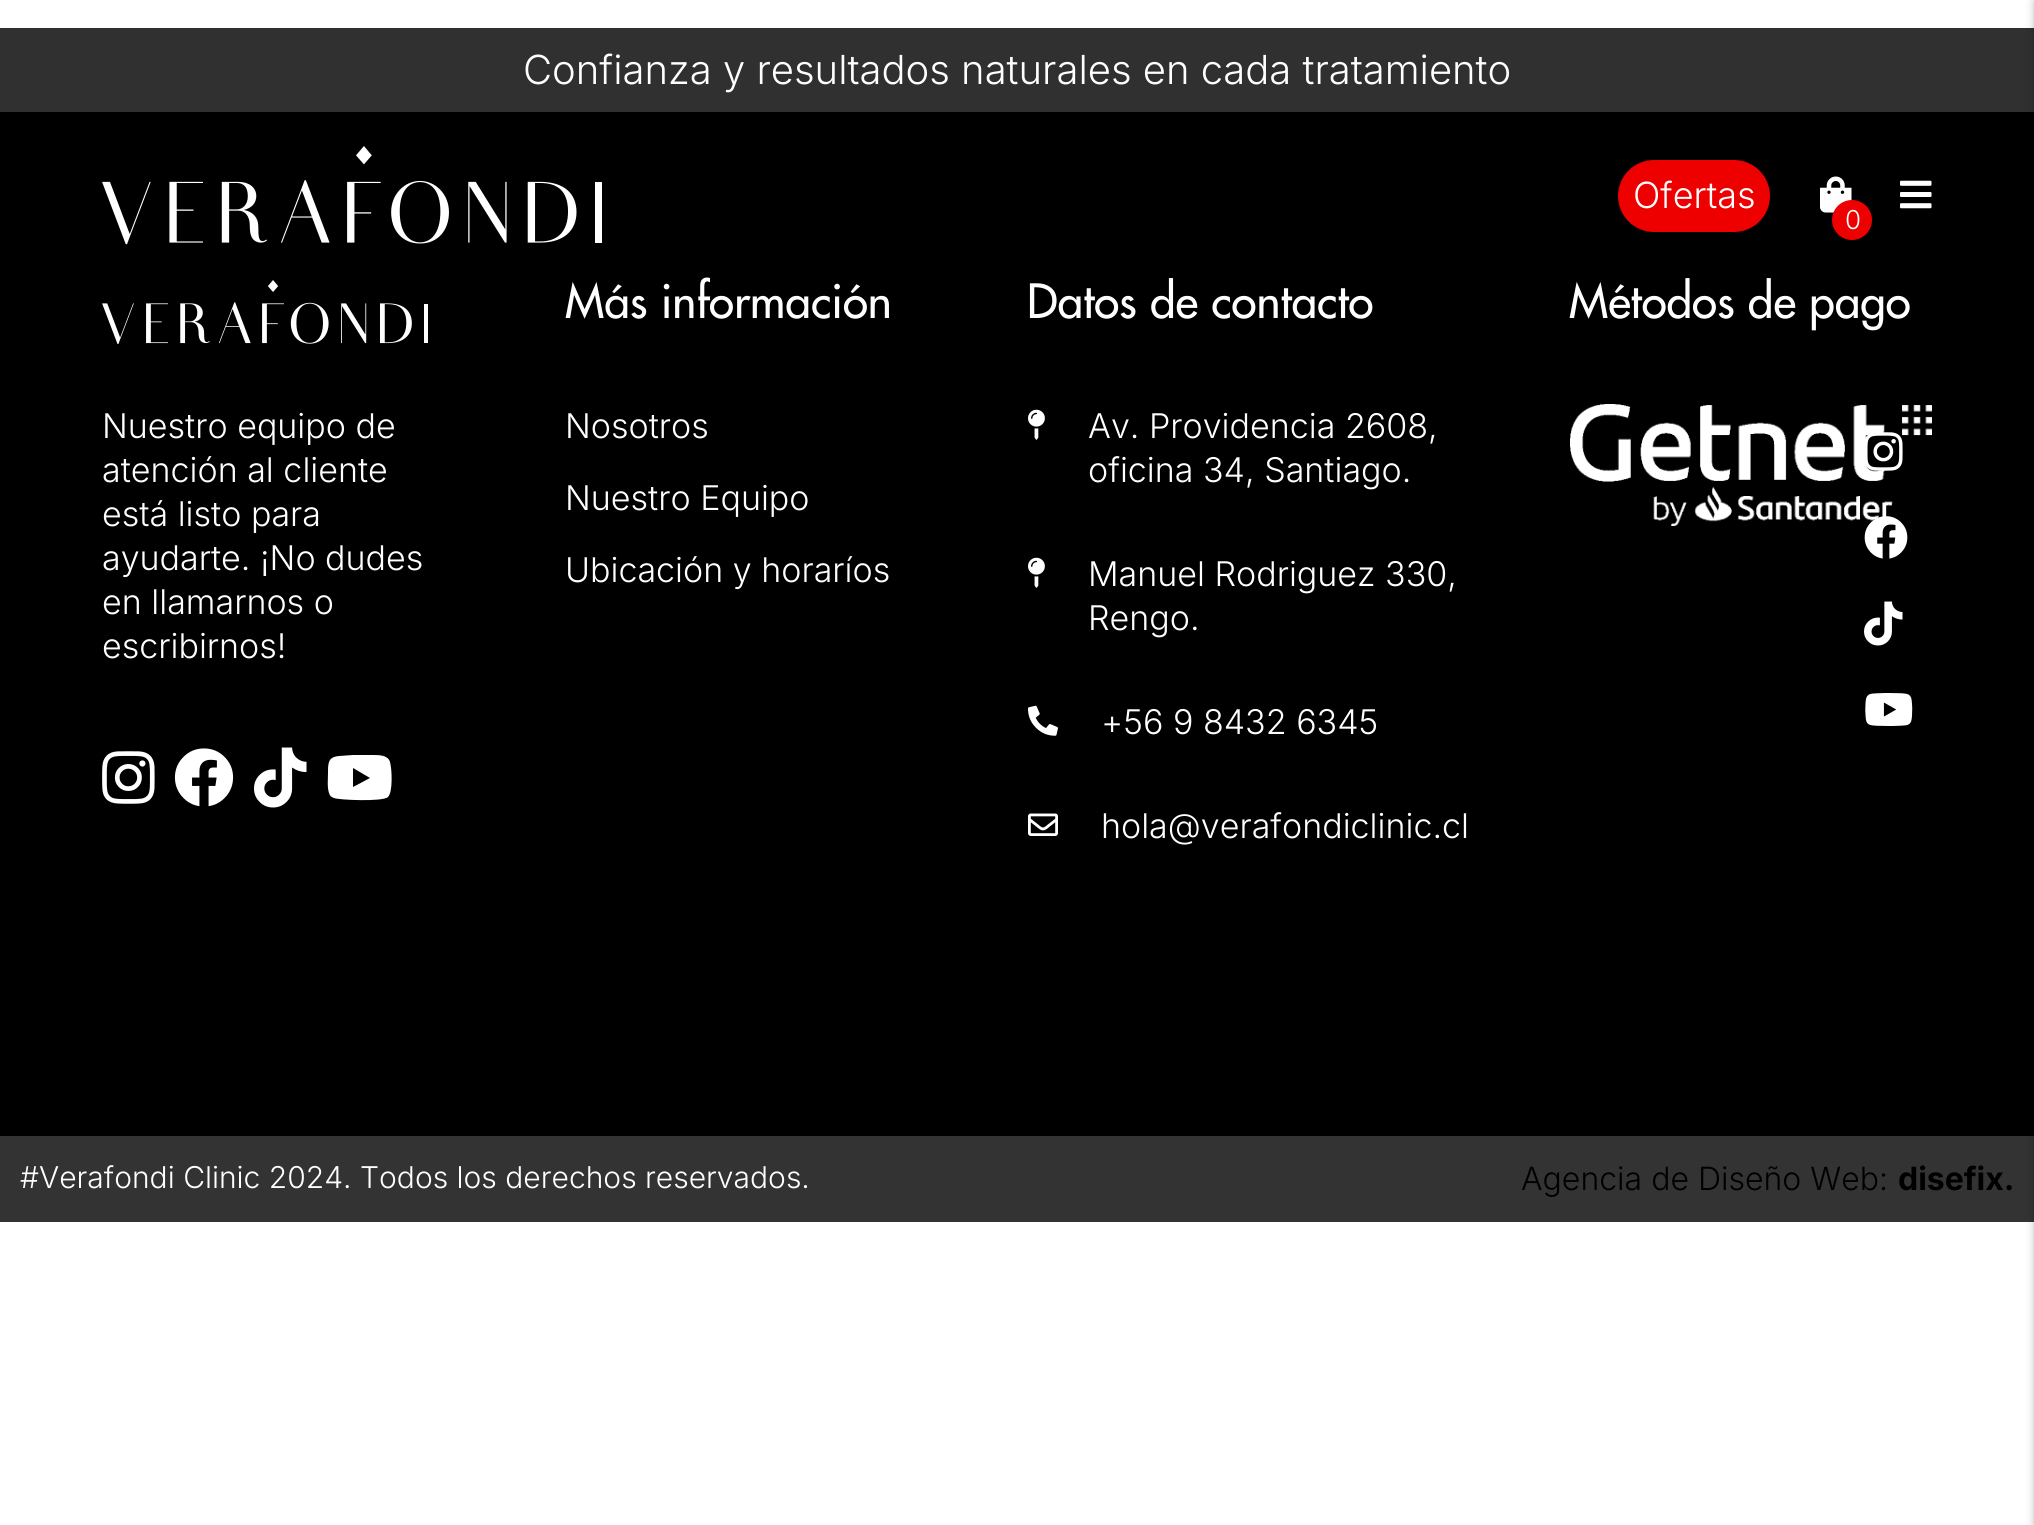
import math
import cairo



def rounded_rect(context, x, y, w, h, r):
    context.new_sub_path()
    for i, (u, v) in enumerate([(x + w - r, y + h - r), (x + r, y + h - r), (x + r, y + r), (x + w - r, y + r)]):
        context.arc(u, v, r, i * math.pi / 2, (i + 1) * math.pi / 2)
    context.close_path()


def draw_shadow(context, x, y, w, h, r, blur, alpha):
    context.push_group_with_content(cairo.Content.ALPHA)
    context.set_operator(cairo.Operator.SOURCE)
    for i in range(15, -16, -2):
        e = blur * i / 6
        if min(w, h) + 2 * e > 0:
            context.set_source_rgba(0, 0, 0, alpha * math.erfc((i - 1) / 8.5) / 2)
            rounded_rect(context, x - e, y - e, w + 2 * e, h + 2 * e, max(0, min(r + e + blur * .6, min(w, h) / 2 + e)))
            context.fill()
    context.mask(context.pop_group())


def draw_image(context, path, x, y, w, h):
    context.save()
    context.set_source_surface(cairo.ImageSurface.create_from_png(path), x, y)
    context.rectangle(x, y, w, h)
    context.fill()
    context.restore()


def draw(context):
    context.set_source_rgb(1, 1, 1)
    context.paint()
    context.set_source_rgb(48 / 255, 48 / 255, 48 / 255)
    context.rectangle(0, 28, 2034, 84)
    context.fill()
    context.set_source_rgb(0, 0, 0)
    context.rectangle(0, 112, 2034, 1024)
    context.fill()
    draw_image(context, "images/1.png", 102, 146, 500, 99)
    context.set_source_rgb(238 / 255, 0, 0)
    rounded_rect(context, 1618, 160, 152, 72, 36)
    context.fill()
    draw_image(context, "images/2.png", 1900, 180, 32, 29)
    draw_image(context, "images/3.png", 1820, 176, 32, 37)
    context.arc(1852, 220, 20, 0, 2 * math.pi)
    context.fill()
    context.set_source_rgb(51 / 255, 51 / 255, 51 / 255)
    context.rectangle(0, 1136, 2034, 86)
    context.fill()
    context.set_source_rgb(0, 0, 0)
    draw_shadow(context, 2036, 2, 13, 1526, 0, 5, 0.37)
    draw_image(context, "images/4.png", 1028, 409, 17, 31)
    draw_image(context, "images/4.png", 1028, 557, 17, 31)
    draw_image(context, "images/5.png", 1028, 705, 30, 31)
    draw_image(context, "images/6.png", 1028, 813, 30, 23)
    draw_image(context, "images/7.png", 1570, 404, 362, 122)
    draw_image(context, "images/8.png", 102, 280, 326, 64)
    draw_image(context, "images/9.png", 102, 751, 53, 53)
    draw_image(context, "images/10.png", 174, 748, 60, 59)
    draw_image(context, "images/11.png", 254, 747, 53, 61)
    context.set_source_rgb(1, 1, 1)
    context.new_path()
    context.move_to(390, 762)
    context.curve_to(392, 769, 393, 792, 388, 797)
    context.curve_to(383, 802, 338, 800, 334, 798)
    context.curve_to(331, 797, 330, 796, 329, 793)
    context.curve_to(327, 787, 328, 779, 328, 773)
    context.curve_to(328, 763, 328, 757, 339, 756)
    context.line_to(353, 755)
    context.line_to(373, 755)
    context.curve_to(379, 755, 388, 755, 390, 762)
    context.close_path()
    context.move_to(353, 787)
    context.line_to(370, 778)
    context.line_to(353, 768)
    context.close_path()
    context.fill()
    draw_image(context, "images/12.png", 1865, 432, 38, 39)
    draw_image(context, "images/13.png", 1864, 516, 44, 43)
    draw_image(context, "images/14.png", 1864, 601, 39, 45)
    draw_image(context, "images/15.png", 1865, 693, 48, 33)
    context.select_font_face("Inter Light")
    context.set_font_size(40)
    context.move_to(523, 84)
    context.show_text("Confianza y resultados naturales en cada tratamiento")
    context.set_font_size(36)
    context.move_to(1633, 208)
    context.show_text("Ofertas")
    context.set_font_size(26)
    context.move_to(1845, 229)
    context.show_text("0")
    context.select_font_face("Futura")
    context.set_font_size(46)
    context.move_to(565, 318)
    context.show_text("Más información")
    context.select_font_face("Inter Light")
    context.set_font_size(34)
    context.move_to(565, 438)
    context.show_text("Nosotros")
    context.move_to(565, 510)
    context.show_text("Nuestro Equipo")
    context.move_to(565, 582)
    context.show_text("Ubicación y horaríos")
    context.select_font_face("Futura")
    context.set_font_size(46)
    context.move_to(1027, 318)
    context.show_text("Datos de contacto")
    context.select_font_face("Inter Light")
    context.set_font_size(34)
    context.move_to(1088, 438)
    context.show_text("Av. Providencia 2608,")
    context.move_to(1088, 482)
    context.show_text("oficina 34, Santiago.")
    context.move_to(1088, 586)
    context.show_text("Manuel Rodriguez 330,")
    context.move_to(1088, 630)
    context.show_text("Rengo.")
    context.move_to(1101, 734)
    context.show_text("+56 9 8432 6345")
    context.move_to(1101, 838)
    context.show_text("hola@verafondiclinic.cl")
    context.select_font_face("Futura")
    context.set_font_size(46)
    context.move_to(1569, 318)
    context.show_text("Métodos de pago")
    context.select_font_face("Inter Light")
    context.set_font_size(34)
    context.move_to(102, 438)
    context.show_text("Nuestro equipo de")
    context.move_to(102, 482)
    context.show_text("atención al cliente")
    context.move_to(102, 526)
    context.show_text("está listo para")
    context.move_to(102, 570)
    context.show_text("ayudarte. ¡No dudes")
    context.move_to(102, 614)
    context.show_text("en llamarnos o")
    context.move_to(102, 658)
    context.show_text("escribirnos!")
    context.set_font_size(30)
    context.move_to(20, 1188)
    context.show_text("#Verafondi Clinic 2024. Todos los derechos reservados.")
    context.set_font_size(32)
    context.set_source_rgb(0, 0, 0)
    context.move_to(1521, 1190)
    context.show_text("Agencia de Diseño Web:")
    context.select_font_face("Inter", cairo.FontSlant.NORMAL, cairo.FontWeight.BOLD)
    context.move_to(1898, 1190)
    context.show_text("disefix.")


surface = cairo.ImageSurface(cairo.Format.RGB24, 2034, 1525)
context = cairo.Context(surface)
options = cairo.FontOptions()
options.set_hint_metrics(cairo.HintMetrics.OFF)
options.set_hint_style(cairo.HintStyle.NONE)
context.set_font_options(options)
context.set_miter_limit(4)
draw(context)
surface.write_to_png("out.png")
